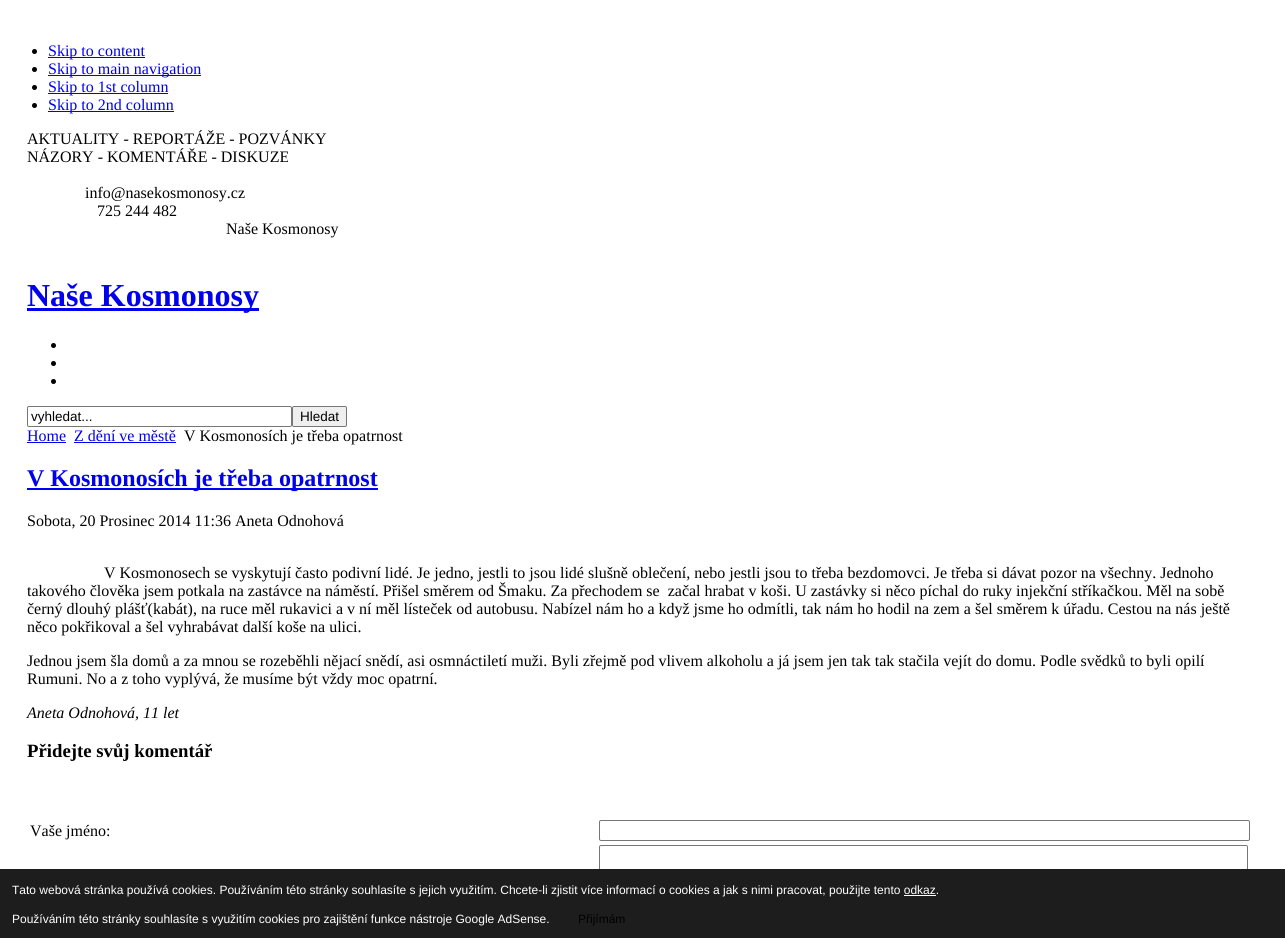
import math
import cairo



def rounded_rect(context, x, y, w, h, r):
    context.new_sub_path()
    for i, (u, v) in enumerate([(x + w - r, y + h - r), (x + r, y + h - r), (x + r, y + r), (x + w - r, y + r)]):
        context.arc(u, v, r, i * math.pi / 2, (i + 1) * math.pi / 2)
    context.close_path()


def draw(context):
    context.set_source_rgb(1, 1, 1)
    context.paint()
    context.set_source_rgb(0, 0, 0)
    context.arc(34.5, 51.5, 2.5, 0, 2 * math.pi)
    context.fill()
    context.set_source_rgb(0, 0, 238 / 255)
    context.rectangle(48, 57, 97, 1)
    context.fill()
    context.set_source_rgb(0, 0, 0)
    context.arc(34.5, 69.5, 2.5, 0, 2 * math.pi)
    context.fill()
    context.set_source_rgb(0, 0, 238 / 255)
    context.rectangle(48, 75, 153, 1)
    context.fill()
    context.set_source_rgb(0, 0, 0)
    context.arc(34.5, 87.5, 2.5, 0, 2 * math.pi)
    context.fill()
    context.set_source_rgb(0, 0, 238 / 255)
    context.rectangle(48, 93, 120, 1)
    context.fill()
    context.set_source_rgb(0, 0, 0)
    context.arc(34.5, 105.5, 2.5, 0, 2 * math.pi)
    context.fill()
    context.set_source_rgb(0, 0, 238 / 255)
    context.rectangle(48, 111, 126, 1)
    context.fill()
    context.rectangle(27, 308, 232, 3)
    context.fill()
    context.set_source_rgb(0, 0, 0)
    context.arc(53.5, 345.5, 2.5, 0, 2 * math.pi)
    context.fill()
    context.arc(53.5, 363.5, 2.5, 0, 2 * math.pi)
    context.fill()
    context.arc(53.5, 381.5, 2.5, 0, 2 * math.pi)
    context.fill()
    rounded_rect(context, 27.5, 406.5, 264, 20, 1.5)
    context.set_source_rgb(118 / 255, 118 / 255, 118 / 255)
    context.set_line_width(1)
    context.stroke()
    context.set_source_rgb(239 / 255, 239 / 255, 239 / 255)
    rounded_rect(context, 292.5, 406.5, 54, 20, 1.5)
    context.fill_preserve()
    context.set_source_rgb(118 / 255, 118 / 255, 118 / 255)
    context.stroke()
    context.set_source_rgb(0, 0, 238 / 255)
    context.rectangle(27, 442, 39, 1)
    context.fill()
    context.rectangle(74, 442, 102, 1)
    context.fill()
    context.rectangle(27, 488, 351, 2)
    context.fill()
    rounded_rect(context, 599.5, 820.5, 650, 20, 1.5)
    context.set_source_rgb(118 / 255, 118 / 255, 118 / 255)
    context.stroke()
    rounded_rect(context, 599.5, 845.5, 648, 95, 1.5)
    context.stroke()
    context.set_source_rgb(29 / 255, 29 / 255, 29 / 255)
    context.rectangle(0, 869, 1285, 69)
    context.fill()
    context.set_source_rgb(1, 1, 1)
    context.rectangle(904, 895, 32, 1)
    context.fill()
    context.select_font_face("Liberation Serif")
    context.set_font_size(16)
    context.set_source_rgb(0, 0, 238 / 255)
    context.move_to(48, 56)
    context.show_text("Skip to content")
    context.move_to(48, 74)
    context.show_text("Skip to main navigation")
    context.move_to(48, 92)
    context.show_text("Skip to 1st column")
    context.move_to(48, 110)
    context.show_text("Skip to 2nd column")
    context.set_source_rgb(0, 0, 0)
    context.move_to(27, 144)
    context.show_text("AKTUALITY - REPORTÁŽE - POZVÁNKY")
    context.move_to(27, 162)
    context.show_text("NÁZORY - KOMENTÁŘE - DISKUZE")
    context.move_to(85, 198)
    context.show_text("info@nasekosmonosy.cz")
    context.move_to(97, 216)
    context.show_text("725 244 482")
    context.move_to(226, 234)
    context.show_text("Naše Kosmonosy")
    context.select_font_face("Liberation Serif", cairo.FontSlant.NORMAL, cairo.FontWeight.BOLD)
    context.set_font_size(32)
    context.set_source_rgb(0, 0, 238 / 255)
    context.move_to(27, 306)
    context.show_text("Naše Kosmonosy")
    context.select_font_face("Liberation Sans")
    context.set_font_size(13.5)
    context.set_source_rgb(0, 0, 0)
    context.move_to(31, 421)
    context.show_text("vyhledat...")
    context.move_to(300, 421)
    context.show_text("Hledat")
    context.select_font_face("Liberation Serif")
    context.set_font_size(16)
    context.set_source_rgb(0, 0, 238 / 255)
    context.move_to(27, 441)
    context.show_text("Home")
    context.move_to(74, 441)
    context.show_text("Z dění ve městě")
    context.set_source_rgb(0, 0, 0)
    context.move_to(184, 441)
    context.show_text("V Kosmonosích je třeba opatrnost")
    context.select_font_face("Liberation Serif", cairo.FontSlant.NORMAL, cairo.FontWeight.BOLD)
    context.set_font_size(24)
    context.set_source_rgb(0, 0, 238 / 255)
    context.move_to(27, 486)
    context.show_text("V Kosmonosích je třeba opatrnost")
    context.select_font_face("Liberation Serif")
    context.set_font_size(16)
    context.set_source_rgb(0, 0, 0)
    context.move_to(27, 526)
    context.show_text("Sobota, 20 Prosinec 2014 11:36 Aneta Odnohová")
    context.move_to(104, 578)
    context.show_text("V Kosmonosech se vyskytují často podivní lidé. Je jedno, jestli to jsou lidé slušně oblečení, nebo jestli jsou to třeba bezdomovci. Je třeba si dávat pozor na všechny. Jednoho")
    context.move_to(27, 596)
    context.show_text("takového člověka jsem potkala na zastávce na náměstí. Přišel směrem od Šmaku. Za přechodem se  začal hrabat v koši. U zastávky si něco píchal do ruky injekční stříkačkou. Měl na sobě")
    context.move_to(27, 614)
    context.show_text("černý dlouhý plášť(kabát), na ruce měl rukavici a v ní měl lísteček od autobusu. Nabízel nám ho a když jsme ho odmítli, tak nám ho hodil na zem a šel směrem k úřadu. Cestou na nás ještě")
    context.move_to(27, 632)
    context.show_text("něco pokřikoval a šel vyhrabávat další koše na ulici.")
    context.move_to(27, 666)
    context.show_text("Jednou jsem šla domů a za mnou se rozeběhli nějací snědí, asi osmnáctiletí muži. Byli zřejmě pod vlivem alkoholu a já jsem jen tak tak stačila vejít do domu. Podle svědků to byli opilí")
    context.move_to(27, 684)
    context.show_text("Rumuni. No a z toho vyplývá, že musíme být vždy moc opatrní.")
    context.select_font_face("Liberation Serif", cairo.FontSlant.ITALIC)
    context.move_to(27, 718)
    context.show_text("Aneta Odnohová, 11 let")
    context.select_font_face("Liberation Serif", cairo.FontSlant.NORMAL, cairo.FontWeight.BOLD)
    context.set_font_size(18.75)
    context.move_to(27, 757)
    context.show_text("Přidejte svůj komentář")
    context.select_font_face("Liberation Serif")
    context.set_font_size(16)
    context.move_to(30, 836)
    context.show_text("Vaše jméno:")
    context.select_font_face("Liberation Sans")
    context.set_font_size(12)
    context.set_source_rgb(1, 1, 1)
    context.move_to(12, 894)
    context.show_text("Tato webová stránka používá cookies. Používáním této stránky souhlasíte s jejich využitím. Chcete-li zjistit více informací o cookies a jak s nimi pracovat, použijte tento odkaz.")
    context.move_to(12, 923)
    context.show_text("Používáním této stránky souhlasíte s využitím cookies pro zajištění funkce nástroje Google AdSense.")
    context.set_source_rgb(0, 0, 0)
    context.move_to(578, 923)
    context.show_text("Přijímám")


surface = cairo.ImageSurface(cairo.Format.RGB24, 1285, 938)
context = cairo.Context(surface)
options = cairo.FontOptions()
options.set_hint_metrics(cairo.HintMetrics.OFF)
options.set_hint_style(cairo.HintStyle.NONE)
context.set_font_options(options)
context.set_miter_limit(4)
draw(context)
surface.write_to_png("out.png")
